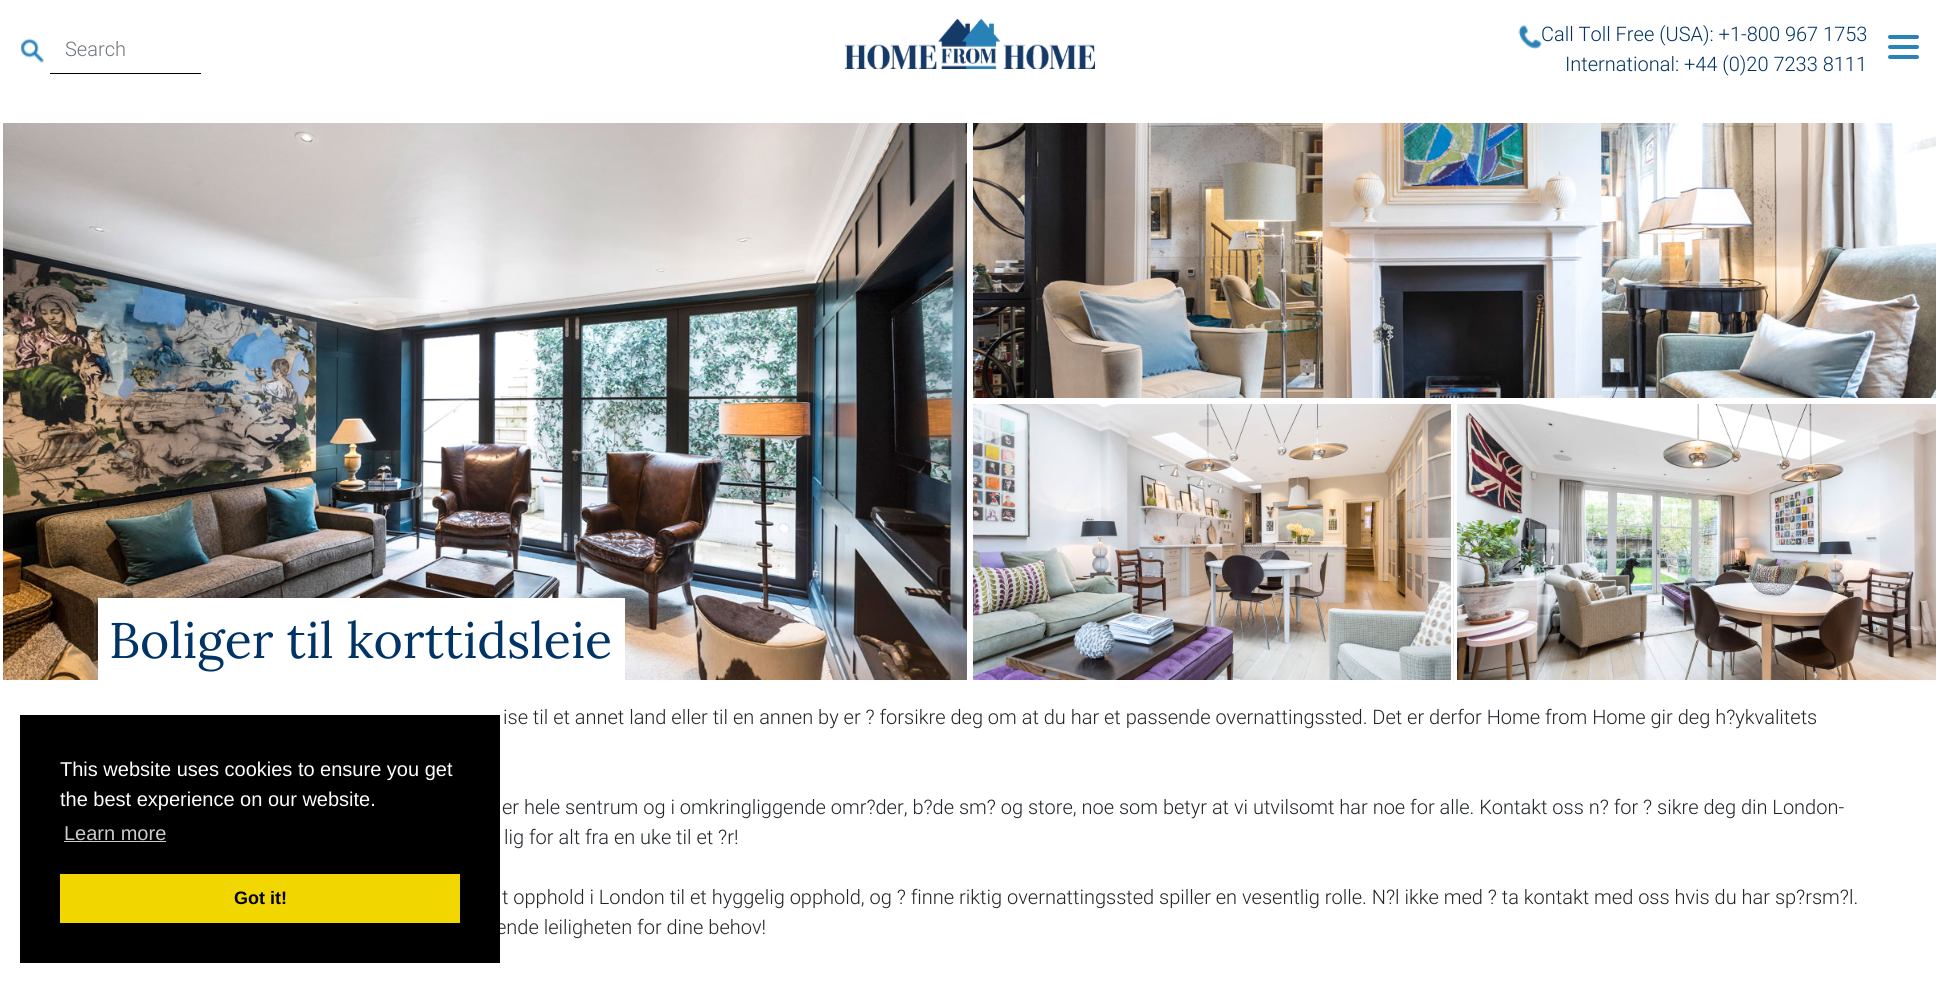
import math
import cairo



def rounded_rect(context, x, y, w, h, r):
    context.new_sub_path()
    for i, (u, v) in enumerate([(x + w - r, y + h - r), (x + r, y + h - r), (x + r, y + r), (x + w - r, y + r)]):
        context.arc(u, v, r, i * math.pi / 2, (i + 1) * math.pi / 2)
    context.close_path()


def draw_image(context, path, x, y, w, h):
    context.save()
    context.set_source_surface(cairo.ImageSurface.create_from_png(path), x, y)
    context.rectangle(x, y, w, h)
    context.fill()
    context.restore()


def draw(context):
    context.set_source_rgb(1, 1, 1)
    context.paint()
    draw_image(context, "images/1.png", 21, 38, 23, 25)
    context.set_source_rgb(0, 0, 0)
    context.rectangle(50, 73, 151, 1)
    context.fill()
    draw_image(context, "images/2.png", 845, 19, 250, 50)
    draw_image(context, "images/3.png", 1518, 24, 24, 25)
    context.set_source_rgb(41 / 255, 130 / 255, 184 / 255)
    rounded_rect(context, 1888, 35, 31, 4, 2)
    context.fill()
    rounded_rect(context, 1888, 45, 31, 4, 2)
    context.fill()
    rounded_rect(context, 1888, 55, 31, 4, 2)
    context.fill()
    draw_image(context, "images/4.png", 3, 123, 964, 557)
    draw_image(context, "images/5.png", 973, 123, 963, 275)
    draw_image(context, "images/6.png", 973, 404, 478, 276)
    draw_image(context, "images/7.png", 1453, 401, 483, 282)
    context.rectangle(1455.5, 402.5, 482, 279)
    context.set_source_rgb(1, 1, 1)
    context.set_line_width(3)
    context.stroke()
    context.rectangle(98, 598, 527, 82)
    context.fill()
    context.select_font_face("Roboto Light")
    context.set_font_size(20)
    context.set_source_rgb(108 / 255, 117 / 255, 125 / 255)
    context.move_to(65, 56)
    context.show_text("Search")
    context.set_source_rgb(0, 51 / 255, 102 / 255)
    context.move_to(1541, 41)
    context.show_text("Call Toll Free (USA): +1-800 967 1753")
    context.move_to(1565, 71)
    context.show_text("International: +44 (0)20 7233 8111")
    context.select_font_face("Lora")
    context.set_font_size(50)
    context.move_to(109, 658)
    context.show_text("Boliger til korttidsleie")
    context.select_font_face("Roboto Light")
    context.set_font_size(20)
    context.set_source_rgb(33 / 255, 37 / 255, 41 / 255)
    context.move_to(503, 724)
    context.show_text("ise til et annet land eller til en annen by er ? forsikre deg om at du har et passende overnattingssted. Det er derfor Home from Home gir deg h?ykvalitets")
    context.move_to(502, 814)
    context.show_text("er hele sentrum og i omkringliggende omr?der, b?de sm? og store, noe som betyr at vi utvilsomt har noe for alle. Kontakt oss n? for ? sikre deg din London-")
    context.move_to(504, 844)
    context.show_text("lig for alt fra en uke til et ?r!")
    context.move_to(502, 904)
    context.show_text("t opphold i London til et hyggelig opphold, og ? finne riktig overnattingssted spiller en vesentlig rolle. N?l ikke med ? ta kontakt med oss hvis du har sp?rsm?l.")
    context.move_to(496, 934)
    context.show_text("ende leiligheten for dine behov!")
    context.set_source_rgb(0, 0, 0)
    context.rectangle(20, 715, 480, 248)
    context.fill()
    context.select_font_face("Liberation Sans")
    context.set_source_rgb(1, 1, 1)
    context.move_to(60, 776)
    context.show_text("This website uses cookies to ensure you get")
    context.move_to(60, 806)
    context.show_text("the best experience on our website.")
    context.set_source_rgb(204 / 255, 204 / 255, 204 / 255)
    context.move_to(64, 840)
    context.show_text("Learn more")
    context.rectangle(64, 841, 102, 1)
    context.fill()
    context.set_source_rgb(241 / 255, 214 / 255, 0)
    context.rectangle(60, 874, 400, 49)
    context.fill()
    context.select_font_face("Liberation Sans", cairo.FontSlant.NORMAL, cairo.FontWeight.BOLD)
    context.set_font_size(18)
    context.set_source_rgb(0, 0, 0)
    context.move_to(234, 904)
    context.show_text("Got it!")


surface = cairo.ImageSurface(cairo.Format.RGB24, 1938, 982)
context = cairo.Context(surface)
options = cairo.FontOptions()
options.set_hint_metrics(cairo.HintMetrics.OFF)
options.set_hint_style(cairo.HintStyle.NONE)
context.set_font_options(options)
context.set_miter_limit(4)
draw(context)
surface.write_to_png("out.png")
